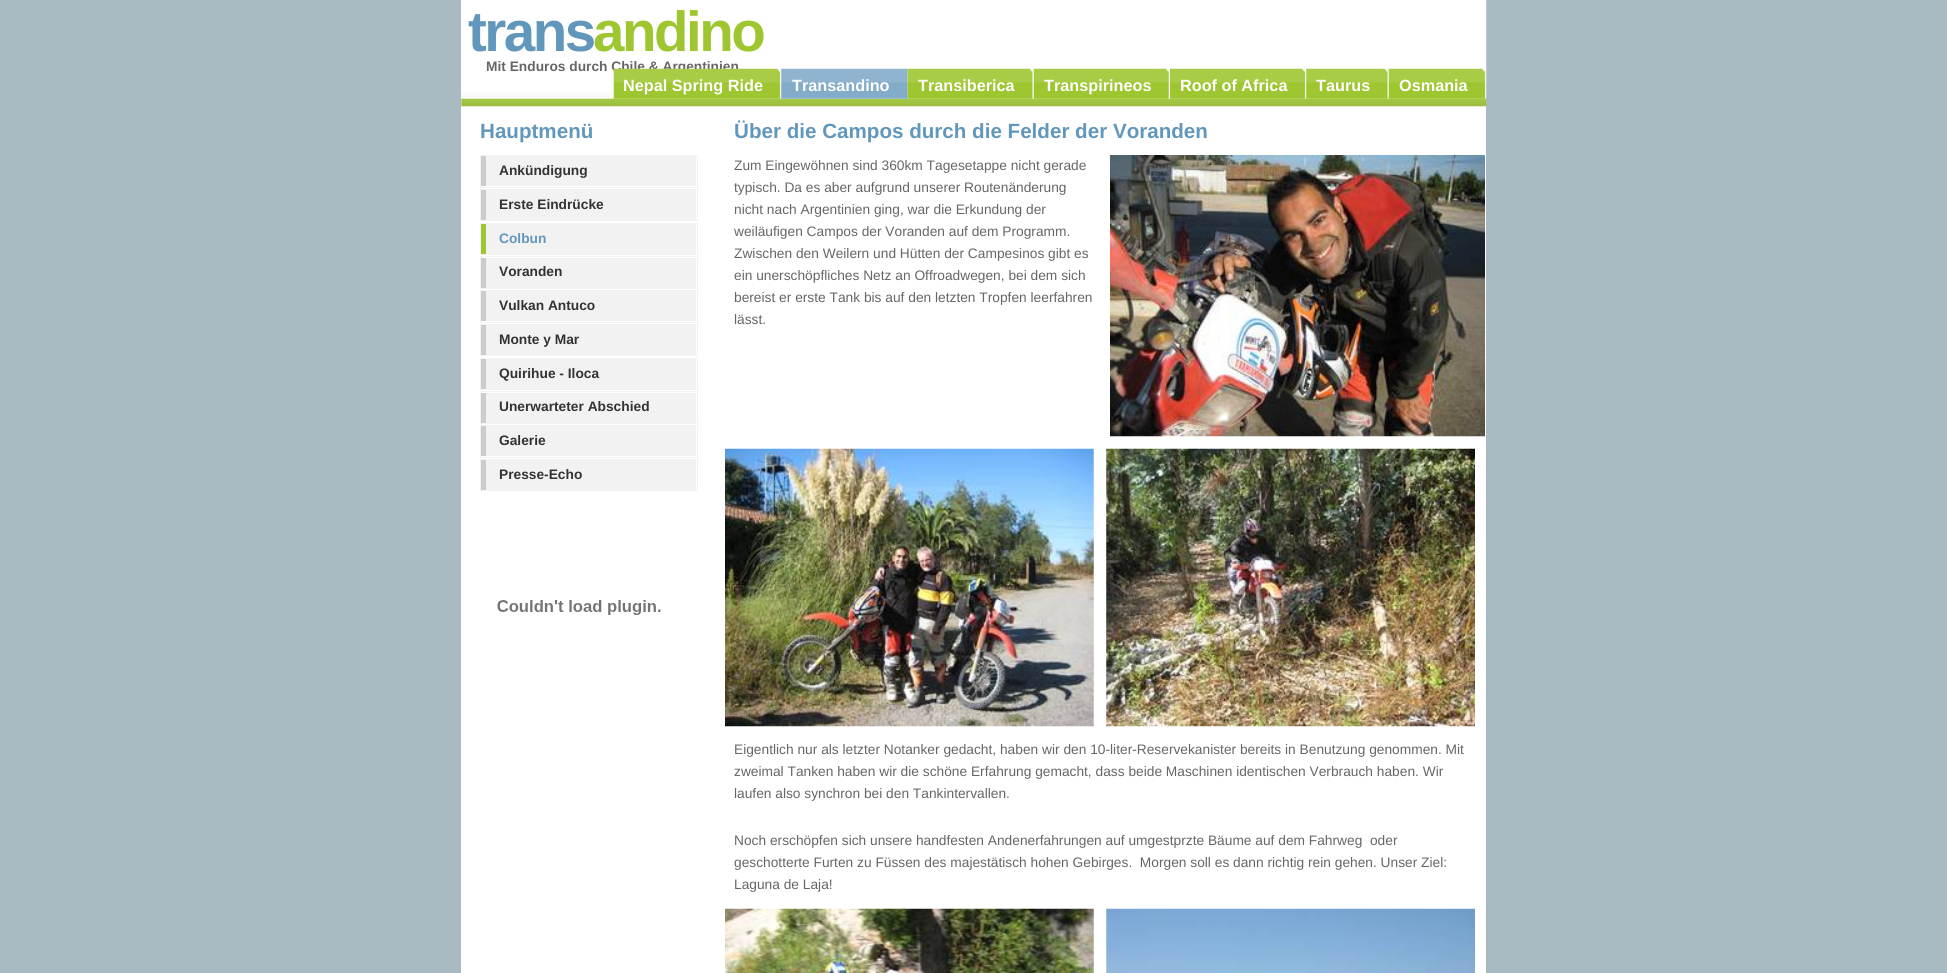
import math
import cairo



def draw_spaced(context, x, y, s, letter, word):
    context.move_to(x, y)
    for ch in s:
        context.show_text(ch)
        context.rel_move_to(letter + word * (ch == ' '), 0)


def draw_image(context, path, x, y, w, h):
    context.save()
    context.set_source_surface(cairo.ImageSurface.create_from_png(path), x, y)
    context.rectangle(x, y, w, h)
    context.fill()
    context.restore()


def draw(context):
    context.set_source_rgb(169 / 255, 186 / 255, 195 / 255)
    context.paint()
    context.set_source_rgb(1, 1, 1)
    context.rectangle(461, 0, 1025, 973)
    context.fill()
    draw_image(context, "images/1.png", 461, 0, 1026, 107)
    draw_image(context, "images/3.png", 781, 68, 127, 31)
    draw_image(context, "images/4.png", 907, 68, 126, 31)
    draw_image(context, "images/5.png", 1033, 68, 136, 31)
    draw_image(context, "images/6.png", 1170, 68, 136, 31)
    draw_image(context, "images/7.png", 1306, 68, 82, 31)
    draw_image(context, "images/8.png", 1388, 68, 98, 31)
    context.rectangle(480.5, 155.5, 217, 32)
    context.set_source_rgb(242 / 255, 242 / 255, 242 / 255)
    context.set_line_width(1)
    context.stroke()
    context.rectangle(486, 156, 210, 30)
    context.fill()
    context.set_source_rgb(204 / 255, 204 / 255, 204 / 255)
    context.rectangle(481, 156, 5, 30)
    context.fill()
    context.rectangle(480.5, 189.5, 217, 31)
    context.set_source_rgb(242 / 255, 242 / 255, 242 / 255)
    context.stroke()
    context.rectangle(486, 190, 210, 30)
    context.fill()
    context.set_source_rgb(204 / 255, 204 / 255, 204 / 255)
    context.rectangle(481, 190, 5, 30)
    context.fill()
    context.rectangle(480.5, 223.5, 217, 31)
    context.set_source_rgb(242 / 255, 242 / 255, 242 / 255)
    context.stroke()
    context.rectangle(486, 224, 210, 30)
    context.fill()
    context.set_source_rgb(158 / 255, 198 / 255, 48 / 255)
    context.rectangle(481, 224, 5, 30)
    context.fill()
    context.rectangle(480.5, 256.5, 217, 32)
    context.set_source_rgb(242 / 255, 242 / 255, 242 / 255)
    context.stroke()
    context.rectangle(486, 258, 210, 30)
    context.fill()
    context.set_source_rgb(204 / 255, 204 / 255, 204 / 255)
    context.rectangle(481, 258, 5, 30)
    context.fill()
    context.rectangle(480.5, 290.5, 217, 32)
    context.set_source_rgb(242 / 255, 242 / 255, 242 / 255)
    context.stroke()
    context.rectangle(486, 291, 210, 30)
    context.fill()
    context.set_source_rgb(204 / 255, 204 / 255, 204 / 255)
    context.rectangle(481, 291, 5, 30)
    context.fill()
    context.rectangle(480.5, 324.5, 217, 31)
    context.set_source_rgb(242 / 255, 242 / 255, 242 / 255)
    context.stroke()
    context.rectangle(486, 325, 210, 30)
    context.fill()
    context.set_source_rgb(204 / 255, 204 / 255, 204 / 255)
    context.rectangle(481, 325, 5, 30)
    context.fill()
    context.rectangle(480.5, 358.5, 217, 31)
    context.set_source_rgb(242 / 255, 242 / 255, 242 / 255)
    context.stroke()
    context.rectangle(486, 359, 210, 30)
    context.fill()
    context.set_source_rgb(204 / 255, 204 / 255, 204 / 255)
    context.rectangle(481, 359, 5, 30)
    context.fill()
    context.rectangle(480.5, 391.5, 217, 32)
    context.set_source_rgb(242 / 255, 242 / 255, 242 / 255)
    context.stroke()
    context.rectangle(486, 393, 210, 30)
    context.fill()
    context.set_source_rgb(204 / 255, 204 / 255, 204 / 255)
    context.rectangle(481, 393, 5, 30)
    context.fill()
    context.rectangle(480.5, 425.5, 217, 32)
    context.set_source_rgb(242 / 255, 242 / 255, 242 / 255)
    context.stroke()
    context.rectangle(486, 426, 210, 30)
    context.fill()
    context.set_source_rgb(204 / 255, 204 / 255, 204 / 255)
    context.rectangle(481, 426, 5, 30)
    context.fill()
    context.rectangle(480.5, 459.5, 217, 31)
    context.set_source_rgb(242 / 255, 242 / 255, 242 / 255)
    context.stroke()
    context.rectangle(486, 460, 210, 30)
    context.fill()
    context.set_source_rgb(204 / 255, 204 / 255, 204 / 255)
    context.rectangle(481, 460, 5, 30)
    context.fill()
    draw_image(context, "images/9.png", 497, 600, 164, 15)
    draw_image(context, "images/10.png", 1110, 155, 375, 282)
    draw_image(context, "images/11.png", 725, 448, 369, 279)
    draw_image(context, "images/12.png", 1106, 448, 369, 279)
    draw_image(context, "images/13.png", 725, 908, 369, 65)
    draw_image(context, "images/14.png", 1106, 908, 369, 65)
    context.select_font_face("Liberation Sans", cairo.FontSlant.NORMAL, cairo.FontWeight.BOLD)
    context.set_font_size(56.5)
    context.set_source_rgb(98 / 255, 151 / 255, 188 / 255)
    draw_spaced(context, 468, 51, "trans", -2.5, 0)
    context.set_source_rgb(158 / 255, 198 / 255, 48 / 255)
    draw_spaced(context, 593, 51, "andino", -2.5, 0)
    context.set_font_size(13.75)
    context.set_source_rgb(102 / 255, 102 / 255, 102 / 255)
    context.move_to(486, 71)
    context.show_text("Mit Enduros durch Chile & Argentinien")
    draw_image(context, "images/2.png", 613, 68, 168, 31)
    context.set_font_size(16.25)
    context.set_source_rgb(1, 1, 1)
    context.move_to(623, 91)
    context.show_text("Nepal Spring Ride")
    context.move_to(792, 91)
    context.show_text("Transandino")
    context.move_to(918, 91)
    context.show_text("Transiberica")
    context.move_to(1044, 91)
    context.show_text("Transpirineos")
    context.move_to(1180, 91)
    context.show_text("Roof of Africa")
    context.move_to(1316, 91)
    context.show_text("Taurus")
    context.move_to(1399, 91)
    context.show_text("Osmania")
    context.set_font_size(20.6)
    context.set_source_rgb(98 / 255, 151 / 255, 188 / 255)
    context.move_to(480, 138)
    context.show_text("Hauptmenü")
    context.set_font_size(13.75)
    context.set_source_rgb(51 / 255, 51 / 255, 51 / 255)
    context.move_to(499, 175)
    context.show_text("Ankündigung")
    context.move_to(499, 209)
    context.show_text("Erste Eindrücke")
    context.set_source_rgb(98 / 255, 151 / 255, 188 / 255)
    context.move_to(499, 243)
    context.show_text("Colbun")
    context.set_source_rgb(51 / 255, 51 / 255, 51 / 255)
    context.move_to(499, 276)
    context.show_text("Voranden")
    context.move_to(499, 310)
    context.show_text("Vulkan Antuco")
    context.move_to(499, 344)
    context.show_text("Monte y Mar")
    context.move_to(499, 378)
    context.show_text("Quirihue - Iloca")
    context.move_to(499, 411)
    context.show_text("Unerwarteter Abschied")
    context.move_to(499, 445)
    context.show_text("Galerie")
    context.move_to(499, 479)
    context.show_text("Presse-Echo")
    context.set_font_size(20.6)
    context.set_source_rgb(98 / 255, 151 / 255, 188 / 255)
    context.move_to(734, 138)
    context.show_text("Über die Campos durch die Felder der Voranden")
    context.select_font_face("Liberation Sans")
    context.set_font_size(13.75)
    context.set_source_rgb(102 / 255, 102 / 255, 102 / 255)
    context.move_to(734, 170)
    context.show_text("Zum Eingewöhnen sind 360km Tagesetappe nicht gerade")
    context.move_to(734, 192)
    context.show_text("typisch. Da es aber aufgrund unserer Routenänderung")
    context.move_to(734, 214)
    context.show_text("nicht nach Argentinien ging, war die Erkundung der")
    context.move_to(734, 236)
    context.show_text("weiläufigen Campos der Voranden auf dem Programm.")
    context.move_to(734, 258)
    context.show_text("Zwischen den Weilern und Hütten der Campesinos gibt es")
    context.move_to(734, 280)
    context.show_text("ein unerschöpfliches Netz an Offroadwegen, bei dem sich")
    context.move_to(734, 302)
    context.show_text("bereist er erste Tank bis auf den letzten Tropfen leerfahren")
    context.move_to(734, 324)
    context.show_text("lässt.")
    context.move_to(734, 754)
    context.show_text("Eigentlich nur als letzter Notanker gedacht, haben wir den 10-liter-Reservekanister bereits in Benutzung genommen. Mit")
    context.move_to(734, 776)
    context.show_text("zweimal Tanken haben wir die schöne Erfahrung gemacht, dass beide Maschinen identischen Verbrauch haben. Wir")
    context.move_to(734, 798)
    context.show_text("laufen also synchron bei den Tankintervallen.")
    context.move_to(734, 845)
    context.show_text("Noch erschöpfen sich unsere handfesten Andenerfahrungen auf umgestprzte Bäume auf dem Fahrweg  oder")
    context.move_to(734, 867)
    context.show_text("geschotterte Furten zu Füssen des majestätisch hohen Gebirges.  Morgen soll es dann richtig rein gehen. Unser Ziel:")
    context.move_to(734, 889)
    context.show_text("Laguna de Laja!")


surface = cairo.ImageSurface(cairo.Format.RGB24, 1947, 973)
context = cairo.Context(surface)
options = cairo.FontOptions()
options.set_hint_metrics(cairo.HintMetrics.OFF)
options.set_hint_style(cairo.HintStyle.NONE)
context.set_font_options(options)
context.set_miter_limit(4)
draw(context)
surface.write_to_png("out.png")
